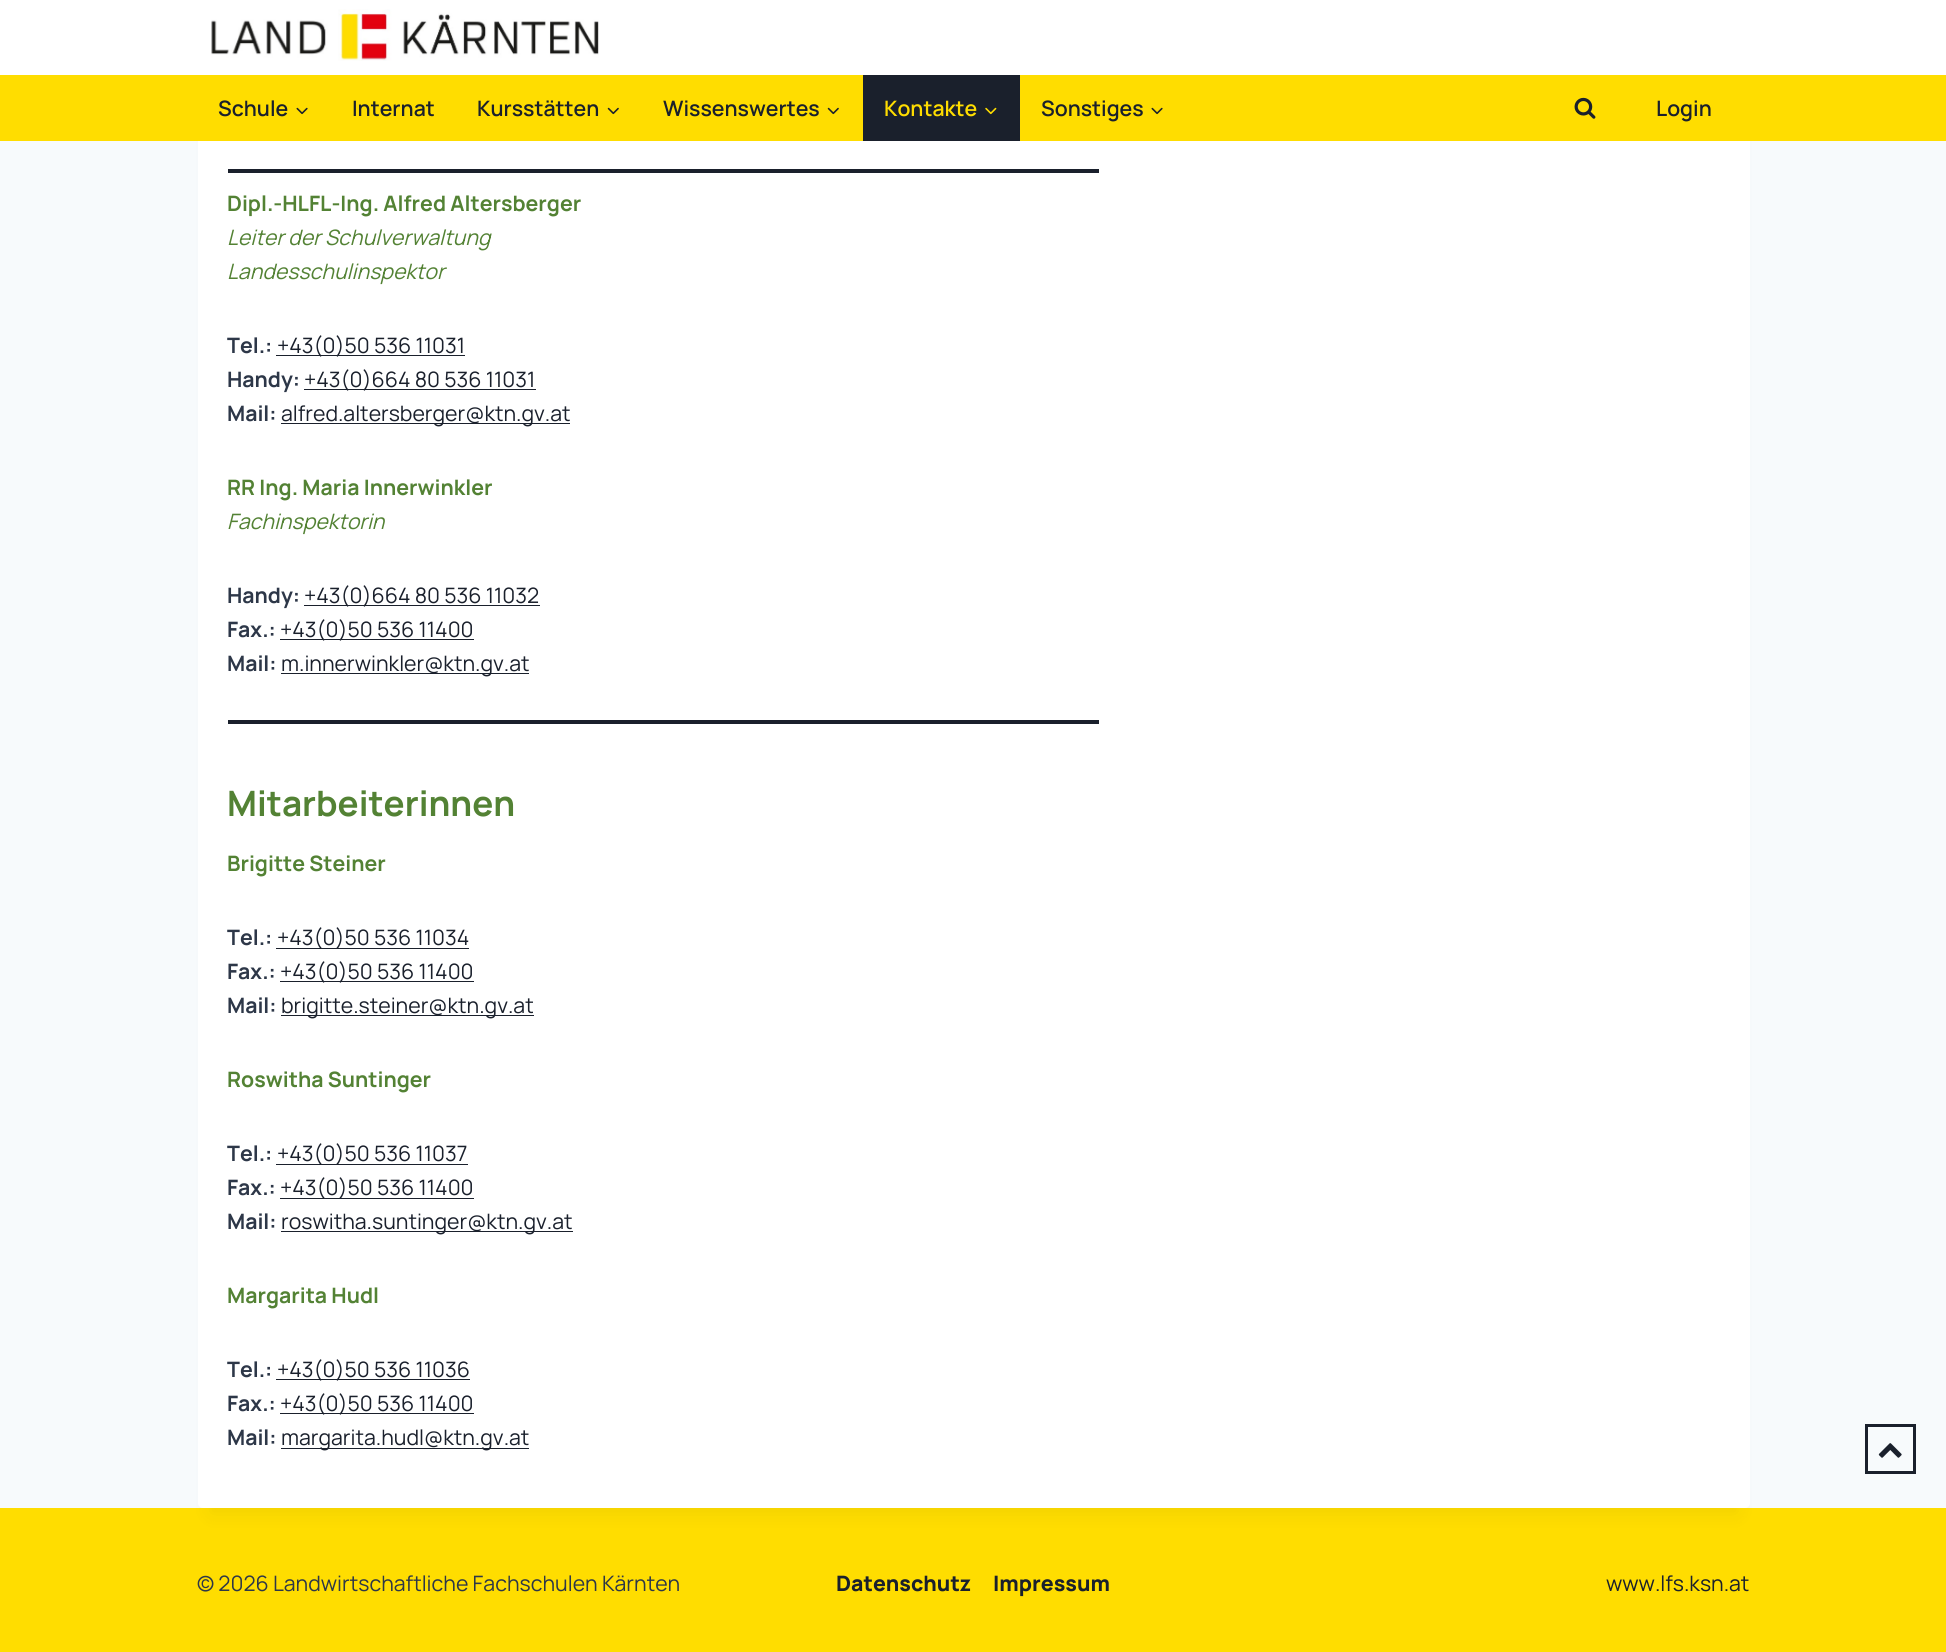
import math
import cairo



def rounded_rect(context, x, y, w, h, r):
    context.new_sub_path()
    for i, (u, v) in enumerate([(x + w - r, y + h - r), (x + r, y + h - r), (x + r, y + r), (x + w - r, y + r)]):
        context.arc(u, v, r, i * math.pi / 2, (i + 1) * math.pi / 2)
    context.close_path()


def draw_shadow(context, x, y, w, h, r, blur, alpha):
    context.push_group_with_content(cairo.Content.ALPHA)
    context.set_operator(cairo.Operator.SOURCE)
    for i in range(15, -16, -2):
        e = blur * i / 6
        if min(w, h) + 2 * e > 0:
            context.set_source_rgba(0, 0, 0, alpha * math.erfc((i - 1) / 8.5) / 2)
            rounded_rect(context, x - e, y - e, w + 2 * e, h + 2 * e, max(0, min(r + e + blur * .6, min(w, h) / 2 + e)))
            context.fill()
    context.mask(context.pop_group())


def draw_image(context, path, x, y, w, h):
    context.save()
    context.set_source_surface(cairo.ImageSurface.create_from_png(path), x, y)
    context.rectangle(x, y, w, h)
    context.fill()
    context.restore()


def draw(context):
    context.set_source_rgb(247 / 255, 250 / 255, 252 / 255)
    context.paint()
    context.set_source_rgb(1, 221 / 255, 0)
    context.rectangle(0, 1508, 1946, 144)
    context.fill()
    context.set_source_rgb(0, 0, 0)
    draw_shadow(context, 210, 9, 1528, 1505, 0, 9.5, 0.05)
    context.set_source_rgb(1, 1, 1)
    rounded_rect(context, 198, -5, 1552, 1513, 5)
    context.fill()
    context.rectangle(0, 0, 1946, 75)
    context.fill()
    draw_image(context, "images/1.png", 211, 9, 388, 52)
    context.set_source_rgb(1, 221 / 255, 0)
    context.rectangle(0, 75, 1946, 66)
    context.fill()
    draw_image(context, "images/2.png", 296, 107, 12, 8)
    draw_image(context, "images/3.png", 607, 107, 12, 8)
    draw_image(context, "images/3.png", 827, 107, 12, 8)
    context.set_source_rgb(26 / 255, 32 / 255, 44 / 255)
    context.rectangle(863, 75, 157, 66)
    context.fill()
    draw_image(context, "images/4.png", 985, 107, 12, 8)
    draw_image(context, "images/2.png", 1151, 107, 12, 8)
    draw_image(context, "images/5.png", 1574, 97, 22, 22)
    context.rectangle(228, 169, 871, 4)
    context.fill()
    context.rectangle(276, 355, 189, 1)
    context.fill()
    context.rectangle(304, 389, 232, 1)
    context.fill()
    context.rectangle(281, 423, 289, 1)
    context.fill()
    context.rectangle(304, 605, 236, 1)
    context.fill()
    context.rectangle(280, 639, 194, 1)
    context.fill()
    context.rectangle(281, 673, 248, 1)
    context.fill()
    context.rectangle(228, 720, 871, 4)
    context.fill()
    context.rectangle(276, 948, 193, 1)
    context.fill()
    context.rectangle(280, 981, 194, 1)
    context.fill()
    context.rectangle(281, 1015, 253, 1)
    context.fill()
    context.rectangle(276, 1164, 192, 1)
    context.fill()
    context.rectangle(280, 1198, 194, 1)
    context.fill()
    context.rectangle(281, 1231, 292, 1)
    context.fill()
    context.rectangle(276, 1379, 194, 1)
    context.fill()
    context.rectangle(280, 1413, 194, 1)
    context.fill()
    context.rectangle(281, 1448, 248, 1)
    context.fill()
    context.rectangle(1866.5, 1425.5, 48, 47)
    context.set_line_width(3)
    context.stroke()
    draw_image(context, "images/6.png", 1878, 1443, 24, 15)
    context.select_font_face("Manrope SemiBold")
    context.set_font_size(21.25)
    context.move_to(218, 116)
    context.show_text("Schule")
    context.move_to(352, 116)
    context.show_text("Internat")
    context.move_to(477, 116)
    context.show_text("Kursstätten")
    context.move_to(663, 116)
    context.show_text("Wissenswertes")
    context.set_source_rgb(1, 221 / 255, 0)
    context.move_to(884, 116)
    context.show_text("Kontakte")
    context.set_source_rgb(26 / 255, 32 / 255, 44 / 255)
    context.move_to(1041, 116)
    context.show_text("Sonstiges")
    context.move_to(1656, 116)
    context.show_text("Login")
    context.select_font_face("Manrope", cairo.FontSlant.NORMAL, cairo.FontWeight.BOLD)
    context.set_source_rgb(83 / 255, 130 / 255, 52 / 255)
    context.move_to(227, 211)
    context.show_text("Dipl.-HLFL-Ing. Alfred Altersberger")
    context.select_font_face("Manrope", cairo.FontSlant.ITALIC)
    context.move_to(227, 245)
    context.show_text("Leiter der Schulverwaltung")
    context.move_to(227, 279)
    context.show_text("Landesschulinspektor")
    context.select_font_face("Manrope", cairo.FontSlant.NORMAL, cairo.FontWeight.BOLD)
    context.set_source_rgb(45 / 255, 55 / 255, 72 / 255)
    context.move_to(227, 353)
    context.show_text("Tel.:")
    context.select_font_face("Manrope")
    context.set_source_rgb(26 / 255, 32 / 255, 44 / 255)
    context.move_to(277, 353)
    context.show_text("+43(0)50 536 11031")
    context.select_font_face("Manrope", cairo.FontSlant.NORMAL, cairo.FontWeight.BOLD)
    context.set_source_rgb(45 / 255, 55 / 255, 72 / 255)
    context.move_to(227, 387)
    context.show_text("Handy:")
    context.select_font_face("Manrope")
    context.set_source_rgb(26 / 255, 32 / 255, 44 / 255)
    context.move_to(304, 387)
    context.show_text("+43(0)664 80 536 11031")
    context.select_font_face("Manrope", cairo.FontSlant.NORMAL, cairo.FontWeight.BOLD)
    context.set_source_rgb(45 / 255, 55 / 255, 72 / 255)
    context.move_to(227, 421)
    context.show_text("Mail:")
    context.select_font_face("Manrope")
    context.set_source_rgb(26 / 255, 32 / 255, 44 / 255)
    context.move_to(281, 421)
    context.show_text("alfred.altersberger@ktn.gv.at")
    context.select_font_face("Manrope", cairo.FontSlant.NORMAL, cairo.FontWeight.BOLD)
    context.set_source_rgb(83 / 255, 130 / 255, 52 / 255)
    context.move_to(227, 495)
    context.show_text("RR Ing. Maria Innerwinkler")
    context.select_font_face("Manrope", cairo.FontSlant.ITALIC)
    context.move_to(227, 529)
    context.show_text("Fachinspektorin")
    context.select_font_face("Manrope", cairo.FontSlant.NORMAL, cairo.FontWeight.BOLD)
    context.set_source_rgb(45 / 255, 55 / 255, 72 / 255)
    context.move_to(227, 603)
    context.show_text("Handy:")
    context.select_font_face("Manrope")
    context.set_source_rgb(26 / 255, 32 / 255, 44 / 255)
    context.move_to(304, 603)
    context.show_text("+43(0)664 80 536 11032")
    context.select_font_face("Manrope", cairo.FontSlant.NORMAL, cairo.FontWeight.BOLD)
    context.set_source_rgb(45 / 255, 55 / 255, 72 / 255)
    context.move_to(227, 637)
    context.show_text("Fax.:")
    context.select_font_face("Manrope")
    context.set_source_rgb(26 / 255, 32 / 255, 44 / 255)
    context.move_to(280, 637)
    context.show_text("+43(0)50 536 11400")
    context.select_font_face("Manrope", cairo.FontSlant.NORMAL, cairo.FontWeight.BOLD)
    context.set_source_rgb(45 / 255, 55 / 255, 72 / 255)
    context.move_to(227, 671)
    context.show_text("Mail:")
    context.select_font_face("Manrope")
    context.set_source_rgb(26 / 255, 32 / 255, 44 / 255)
    context.move_to(281, 671)
    context.show_text("m.innerwinkler@ktn.gv.at")
    context.select_font_face("Manrope", cairo.FontSlant.NORMAL, cairo.FontWeight.BOLD)
    context.set_font_size(35)
    context.set_source_rgb(83 / 255, 130 / 255, 52 / 255)
    context.move_to(227, 816)
    context.show_text("Mitarbeiterinnen")
    context.set_font_size(21.25)
    context.move_to(227, 871)
    context.show_text("Brigitte Steiner")
    context.set_source_rgb(45 / 255, 55 / 255, 72 / 255)
    context.move_to(227, 945)
    context.show_text("Tel.:")
    context.select_font_face("Manrope")
    context.set_source_rgb(26 / 255, 32 / 255, 44 / 255)
    context.move_to(277, 945)
    context.show_text("+43(0)50 536 11034")
    context.select_font_face("Manrope", cairo.FontSlant.NORMAL, cairo.FontWeight.BOLD)
    context.set_source_rgb(45 / 255, 55 / 255, 72 / 255)
    context.move_to(227, 979)
    context.show_text("Fax.:")
    context.select_font_face("Manrope")
    context.set_source_rgb(26 / 255, 32 / 255, 44 / 255)
    context.move_to(280, 979)
    context.show_text("+43(0)50 536 11400")
    context.select_font_face("Manrope", cairo.FontSlant.NORMAL, cairo.FontWeight.BOLD)
    context.set_source_rgb(45 / 255, 55 / 255, 72 / 255)
    context.move_to(227, 1013)
    context.show_text("Mail:")
    context.select_font_face("Manrope")
    context.set_source_rgb(26 / 255, 32 / 255, 44 / 255)
    context.move_to(281, 1013)
    context.show_text("brigitte.steiner@ktn.gv.at")
    context.select_font_face("Manrope", cairo.FontSlant.NORMAL, cairo.FontWeight.BOLD)
    context.set_source_rgb(83 / 255, 130 / 255, 52 / 255)
    context.move_to(227, 1087)
    context.show_text("Roswitha Suntinger")
    context.set_source_rgb(45 / 255, 55 / 255, 72 / 255)
    context.move_to(227, 1161)
    context.show_text("Tel.:")
    context.select_font_face("Manrope")
    context.set_source_rgb(26 / 255, 32 / 255, 44 / 255)
    context.move_to(277, 1161)
    context.show_text("+43(0)50 536 11037")
    context.select_font_face("Manrope", cairo.FontSlant.NORMAL, cairo.FontWeight.BOLD)
    context.set_source_rgb(45 / 255, 55 / 255, 72 / 255)
    context.move_to(227, 1195)
    context.show_text("Fax.:")
    context.select_font_face("Manrope")
    context.set_source_rgb(26 / 255, 32 / 255, 44 / 255)
    context.move_to(280, 1195)
    context.show_text("+43(0)50 536 11400")
    context.select_font_face("Manrope", cairo.FontSlant.NORMAL, cairo.FontWeight.BOLD)
    context.set_source_rgb(45 / 255, 55 / 255, 72 / 255)
    context.move_to(227, 1229)
    context.show_text("Mail:")
    context.select_font_face("Manrope")
    context.set_source_rgb(26 / 255, 32 / 255, 44 / 255)
    context.move_to(281, 1229)
    context.show_text("roswitha.suntinger@ktn.gv.at")
    context.select_font_face("Manrope", cairo.FontSlant.NORMAL, cairo.FontWeight.BOLD)
    context.set_source_rgb(83 / 255, 130 / 255, 52 / 255)
    context.move_to(227, 1303)
    context.show_text("Margarita Hudl")
    context.set_source_rgb(45 / 255, 55 / 255, 72 / 255)
    context.move_to(227, 1377)
    context.show_text("Tel.:")
    context.select_font_face("Manrope")
    context.set_source_rgb(26 / 255, 32 / 255, 44 / 255)
    context.move_to(277, 1377)
    context.show_text("+43(0)50 536 11036")
    context.select_font_face("Manrope", cairo.FontSlant.NORMAL, cairo.FontWeight.BOLD)
    context.set_source_rgb(45 / 255, 55 / 255, 72 / 255)
    context.move_to(227, 1411)
    context.show_text("Fax.:")
    context.select_font_face("Manrope")
    context.set_source_rgb(26 / 255, 32 / 255, 44 / 255)
    context.move_to(280, 1411)
    context.show_text("+43(0)50 536 11400")
    context.select_font_face("Manrope", cairo.FontSlant.NORMAL, cairo.FontWeight.BOLD)
    context.set_source_rgb(45 / 255, 55 / 255, 72 / 255)
    context.move_to(227, 1445)
    context.show_text("Mail:")
    context.select_font_face("Manrope")
    context.set_source_rgb(26 / 255, 32 / 255, 44 / 255)
    context.move_to(281, 1445)
    context.show_text("margarita.hudl@ktn.gv.at")
    context.set_source_rgb(45 / 255, 55 / 255, 72 / 255)
    context.move_to(197, 1591)
    context.show_text("© 2026 Landwirtschaftliche Fachschulen Kärnten")
    context.select_font_face("Manrope ExtraBold")
    context.set_source_rgb(26 / 255, 32 / 255, 44 / 255)
    context.move_to(836, 1591)
    context.show_text("Datenschutz")
    context.move_to(993, 1591)
    context.show_text("Impressum")
    context.select_font_face("Manrope")
    context.move_to(1606, 1591)
    context.show_text("www.lfs.ksn.at")


surface = cairo.ImageSurface(cairo.Format.RGB24, 1946, 1652)
context = cairo.Context(surface)
options = cairo.FontOptions()
options.set_hint_metrics(cairo.HintMetrics.OFF)
options.set_hint_style(cairo.HintStyle.NONE)
context.set_font_options(options)
context.set_miter_limit(4)
draw(context)
surface.write_to_png("out.png")
